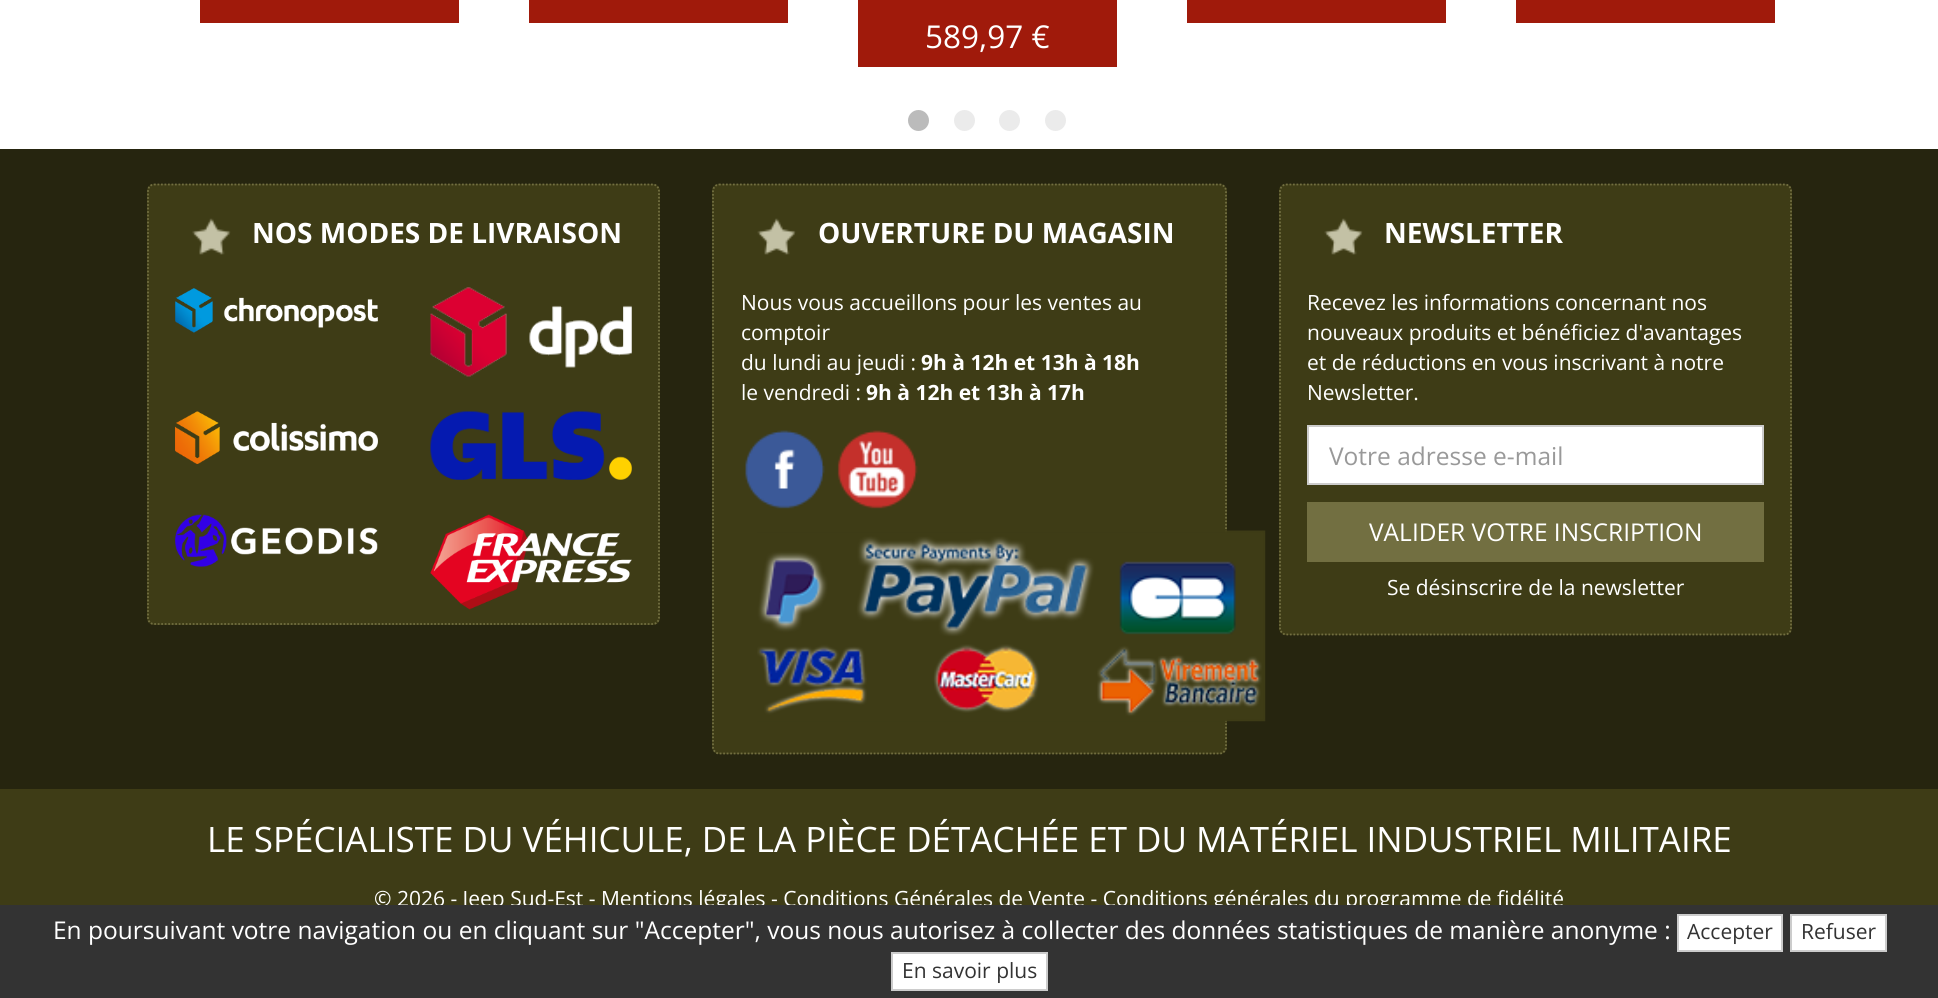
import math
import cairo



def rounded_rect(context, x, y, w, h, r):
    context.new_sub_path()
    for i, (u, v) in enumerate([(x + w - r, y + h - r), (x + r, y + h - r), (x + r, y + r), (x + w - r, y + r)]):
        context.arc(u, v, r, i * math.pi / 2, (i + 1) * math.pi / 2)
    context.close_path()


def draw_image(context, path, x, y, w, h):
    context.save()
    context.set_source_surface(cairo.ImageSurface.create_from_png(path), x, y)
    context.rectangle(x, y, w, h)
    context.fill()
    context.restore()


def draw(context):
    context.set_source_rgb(1, 1, 1)
    context.paint()
    context.set_source_rgb(160 / 255, 26 / 255, 11 / 255)
    context.rectangle(200, 0, 259, 23)
    context.fill()
    context.rectangle(529, 0, 259, 23)
    context.fill()
    context.rectangle(1187, 0, 259, 23)
    context.fill()
    context.rectangle(1516, 0, 259, 23)
    context.fill()
    context.rectangle(858, 0, 259, 67)
    context.fill()
    context.set_source_rgb(187 / 255, 187 / 255, 187 / 255)
    context.arc(918.5, 120.5, 10.5, 0, 2 * math.pi)
    context.fill()
    context.set_source_rgb(235 / 255, 235 / 255, 235 / 255)
    context.arc(964.5, 120.5, 10.5, 0, 2 * math.pi)
    context.fill()
    context.arc(1009.5, 120.5, 10.5, 0, 2 * math.pi)
    context.fill()
    context.arc(1055.5, 120.5, 10.5, 0, 2 * math.pi)
    context.fill()
    context.set_source_rgb(38 / 255, 37 / 255, 15 / 255)
    context.rectangle(0, 149, 1938, 640)
    context.fill()
    context.set_source_rgb(62 / 255, 60 / 255, 22 / 255)
    rounded_rect(context, 147, 184, 513, 441, 7)
    context.fill()
    context.new_path()
    context.move_to(154, 184.5)
    context.line_to(653, 184.5)
    context.curve_to(656, 184.5, 659, 187.5, 659, 191)
    context.line_to(659, 618)
    context.curve_to(659, 621, 656, 624, 653, 624)
    context.line_to(154, 624)
    context.curve_to(150.5, 624, 148, 621, 148, 618)
    context.line_to(148, 191)
    context.curve_to(148, 187.5, 150.5, 184.5, 154, 184.5)
    context.close_path()
    context.set_source_rgb(114 / 255, 111 / 255, 65 / 255)
    context.set_line_width(1.8)
    context.set_dash([1.75, 1.75])
    context.stroke()
    draw_image(context, "images/1.png", 192, 218, 39, 37)
    draw_image(context, "images/2.png", 175, 288, 203, 45)
    draw_image(context, "images/3.png", 430, 287, 202, 90)
    draw_image(context, "images/4.png", 175, 411, 203, 53)
    draw_image(context, "images/5.png", 430, 411, 202, 69)
    draw_image(context, "images/6.png", 175, 514, 203, 53)
    draw_image(context, "images/7.png", 430, 514, 202, 96)
    context.set_source_rgb(62 / 255, 60 / 255, 22 / 255)
    rounded_rect(context, 712, 184, 515, 570, 7)
    context.fill()
    context.new_path()
    context.move_to(719, 184.5)
    context.line_to(1220, 184.5)
    context.curve_to(1223, 184.5, 1226, 187.5, 1226, 191)
    context.line_to(1226, 747)
    context.curve_to(1226, 750.5, 1223, 753.5, 1220, 753.5)
    context.line_to(719, 753.5)
    context.curve_to(716, 753.5, 713, 750.5, 713, 747)
    context.line_to(713, 191)
    context.curve_to(713, 187.5, 716, 184.5, 719, 184.5)
    context.close_path()
    context.set_source_rgb(114 / 255, 111 / 255, 65 / 255)
    context.stroke()
    draw_image(context, "images/8.png", 757, 218, 39, 37)
    draw_image(context, "images/9.png", 745, 430, 80, 79)
    draw_image(context, "images/10.png", 837, 430, 81, 79)
    draw_image(context, "images/11.png", 757, 530, 509, 192)
    context.set_source_rgb(62 / 255, 60 / 255, 22 / 255)
    rounded_rect(context, 1279, 184, 513, 451, 7)
    context.fill()
    context.new_path()
    context.move_to(1286, 184.5)
    context.line_to(1785, 184.5)
    context.curve_to(1788.5, 184.5, 1791, 187.5, 1791, 191)
    context.line_to(1791, 628)
    context.curve_to(1791, 631.5, 1788.5, 634.5, 1785, 634.5)
    context.line_to(1286, 634.5)
    context.curve_to(1283, 634.5, 1280, 631.5, 1280, 628)
    context.line_to(1280, 191)
    context.curve_to(1280, 187.5, 1283, 184.5, 1286, 184.5)
    context.close_path()
    context.set_source_rgb(114 / 255, 111 / 255, 65 / 255)
    context.stroke()
    draw_image(context, "images/12.png", 1324, 218, 39, 37)
    context.set_source_rgb(1, 1, 1)
    context.rectangle(1308, 426, 455, 58)
    context.fill_preserve()
    context.set_source_rgb(204 / 255, 204 / 255, 204 / 255)
    context.set_line_width(2)
    context.set_dash([])
    context.stroke()
    context.set_source_rgb(114 / 255, 111 / 255, 65 / 255)
    context.rectangle(1307, 502, 457, 60)
    context.fill()
    context.set_source_rgb(62 / 255, 60 / 255, 22 / 255)
    context.rectangle(0, 789, 1938, 116)
    context.fill()
    context.select_font_face("Open Sans")
    context.set_font_size(31.5)
    context.set_source_rgb(1, 1, 1)
    context.move_to(925, 48)
    context.show_text("589,97 €")
    context.select_font_face("Open Sans", cairo.FontSlant.NORMAL, cairo.FontWeight.BOLD)
    context.set_font_size(28)
    context.move_to(252, 243)
    context.show_text("NOS MODES DE LIVRAISON")
    context.move_to(818, 243)
    context.show_text("OUVERTURE DU MAGASIN")
    context.select_font_face("Open Sans")
    context.set_font_size(21)
    context.move_to(741, 310)
    context.show_text("Nous vous accueillons pour les ventes au")
    context.move_to(741, 340)
    context.show_text("comptoir")
    context.move_to(741, 370)
    context.show_text("du lundi au jeudi :")
    context.select_font_face("Open Sans", cairo.FontSlant.NORMAL, cairo.FontWeight.BOLD)
    context.move_to(921, 370)
    context.show_text("9h à 12h et 13h à 18h")
    context.select_font_face("Open Sans")
    context.move_to(741, 400)
    context.show_text("le vendredi :")
    context.select_font_face("Open Sans", cairo.FontSlant.NORMAL, cairo.FontWeight.BOLD)
    context.move_to(866, 400)
    context.show_text("9h à 12h et 13h à 17h")
    context.set_font_size(28)
    context.move_to(1384, 243)
    context.show_text("NEWSLETTER")
    context.select_font_face("Open Sans")
    context.set_font_size(21)
    context.move_to(1307, 310)
    context.show_text("Recevez les informations concernant nos")
    context.move_to(1307, 340)
    context.show_text("nouveaux produits et bénéficiez d'avantages")
    context.move_to(1307, 370)
    context.show_text("et de réductions en vous inscrivant à notre")
    context.move_to(1307, 400)
    context.show_text("Newsletter.")
    context.set_font_size(24.5)
    context.set_source_rgb(153 / 255, 153 / 255, 153 / 255)
    context.move_to(1329, 465)
    context.show_text("Votre adresse e-mail")
    context.set_source_rgb(1, 1, 1)
    context.move_to(1369, 541)
    context.show_text("VALIDER VOTRE INSCRIPTION")
    context.set_font_size(21)
    context.move_to(1387, 595)
    context.show_text("Se désinscrire de la newsletter")
    context.set_font_size(35)
    context.move_to(207, 852)
    context.show_text("LE SPÉCIALISTE DU VÉHICULE, DE LA PIÈCE DÉTACHÉE ET DU MATÉRIEL INDUSTRIEL MILITAIRE")
    context.set_font_size(21)
    context.move_to(374, 906)
    context.show_text("© 2026 - Jeep Sud-Est - Mentions légales - Conditions Générales de Vente - Conditions générales du programme de fidélité")
    context.set_source_rgb(51 / 255, 51 / 255, 51 / 255)
    context.rectangle(0, 905, 1938, 93)
    context.fill()
    context.set_font_size(24.5)
    context.set_source_rgb(1, 1, 1)
    context.move_to(53, 939)
    context.show_text("En poursuivant votre navigation ou en cliquant sur \"Accepter\", vous nous autorisez à collecter des données statistiques de manière anonyme :")
    context.rectangle(1678, 915, 104, 36)
    context.fill_preserve()
    context.set_source_rgb(204 / 255, 204 / 255, 204 / 255)
    context.stroke()
    context.set_font_size(21)
    context.set_source_rgb(51 / 255, 51 / 255, 51 / 255)
    context.move_to(1687, 939)
    context.show_text("Accepter")
    context.set_source_rgb(1, 1, 1)
    context.rectangle(1791, 915, 95, 36)
    context.fill_preserve()
    context.set_source_rgb(204 / 255, 204 / 255, 204 / 255)
    context.stroke()
    context.set_source_rgb(51 / 255, 51 / 255, 51 / 255)
    context.move_to(1801, 939)
    context.show_text("Refuser")
    context.set_source_rgb(1, 1, 1)
    context.rectangle(892, 953, 155, 37)
    context.fill_preserve()
    context.set_source_rgb(204 / 255, 204 / 255, 204 / 255)
    context.stroke()
    context.set_source_rgb(51 / 255, 51 / 255, 51 / 255)
    context.move_to(902, 978)
    context.show_text("En savoir plus")


surface = cairo.ImageSurface(cairo.Format.RGB24, 1938, 998)
context = cairo.Context(surface)
options = cairo.FontOptions()
options.set_hint_metrics(cairo.HintMetrics.OFF)
options.set_hint_style(cairo.HintStyle.NONE)
context.set_font_options(options)
context.set_miter_limit(4)
draw(context)
surface.write_to_png("out.png")
